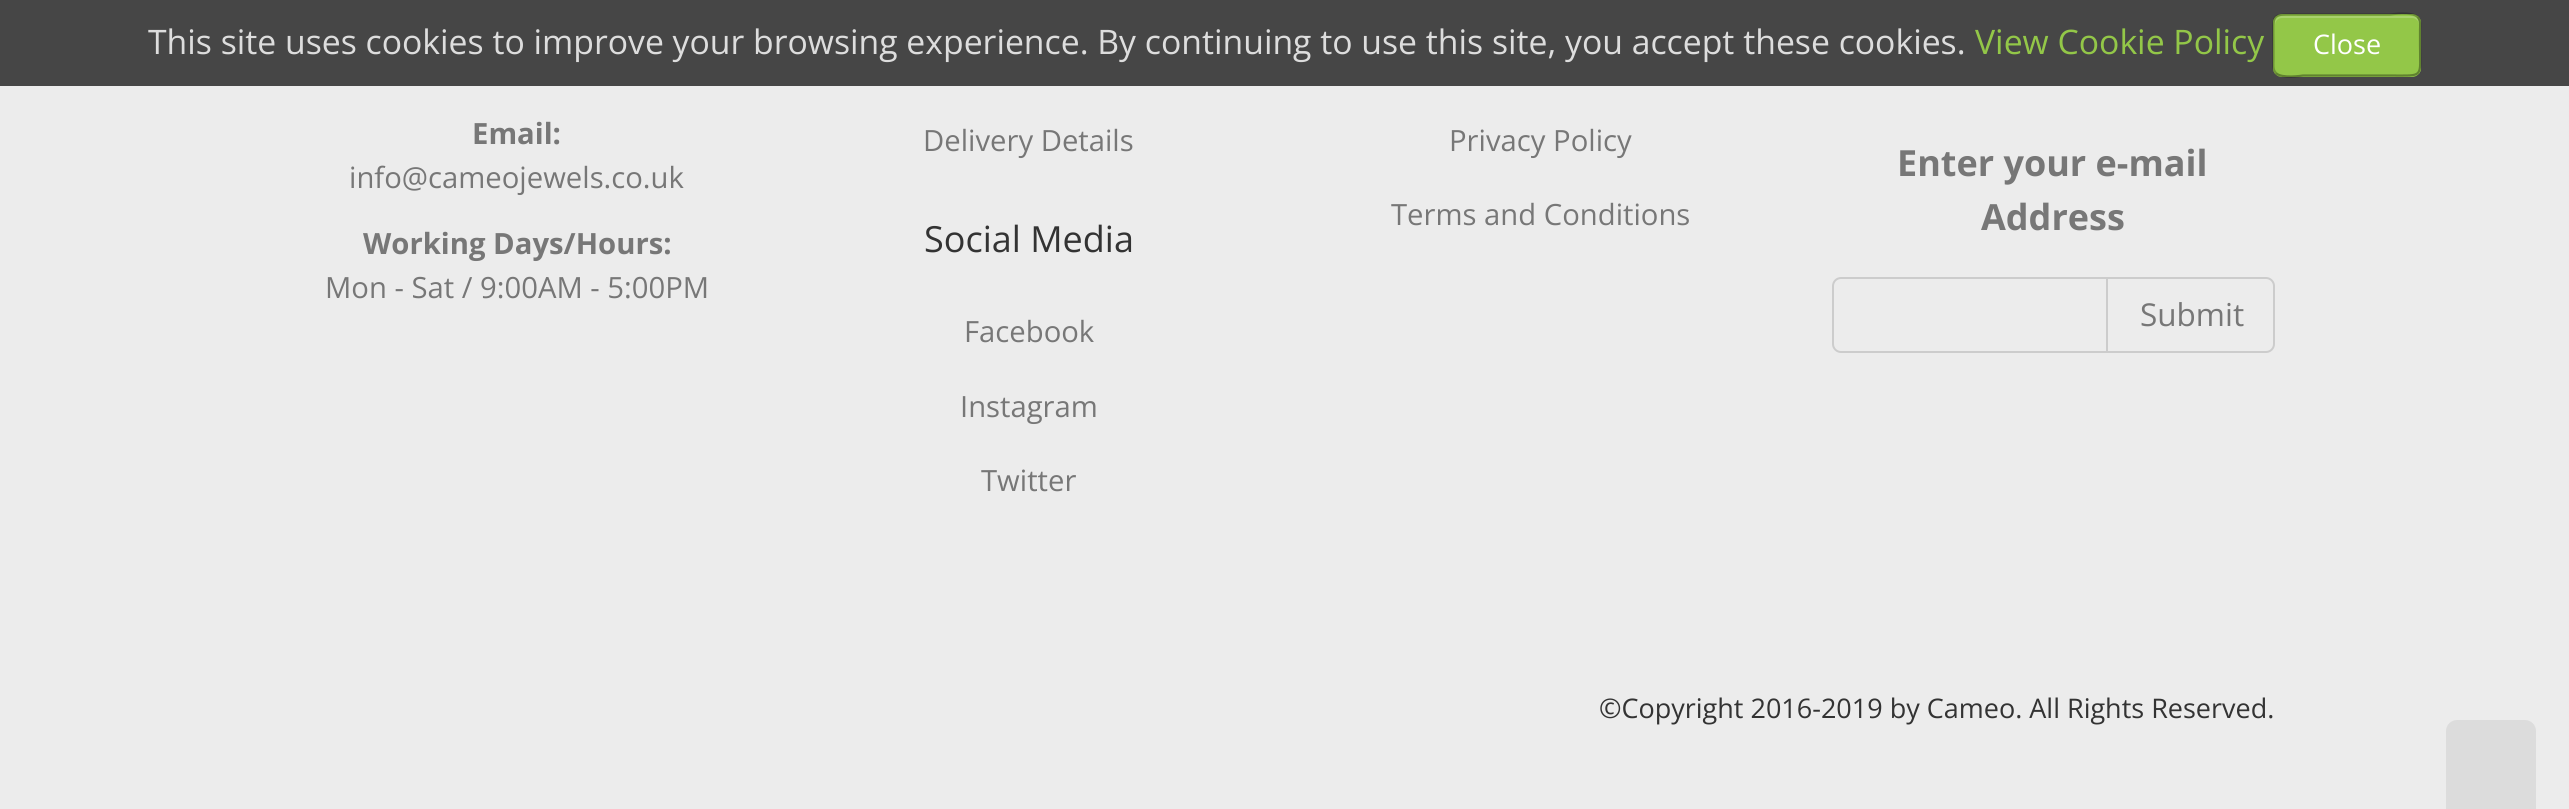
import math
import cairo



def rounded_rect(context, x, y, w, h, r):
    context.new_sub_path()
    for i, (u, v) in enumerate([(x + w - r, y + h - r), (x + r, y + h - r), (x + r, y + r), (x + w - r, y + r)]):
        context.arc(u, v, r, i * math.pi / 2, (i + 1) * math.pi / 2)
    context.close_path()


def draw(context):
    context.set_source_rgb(236 / 255, 236 / 255, 236 / 255)
    context.paint()
    context.set_source_rgb(70 / 255, 70 / 255, 70 / 255)
    context.rectangle(0, 0, 2569, 86)
    context.fill()
    context.set_source_rgb(147 / 255, 199 / 255, 72 / 255)
    rounded_rect(context, 2273, 14, 148, 63, 9)
    context.fill()
    context.save()
    rounded_rect(context, 2273, 14, 148, 63, 9)
    context.clip()
    context.rectangle(2273, 16, 148, 58)
    context.fill()
    context.restore()
    context.set_source_rgb(169 / 255, 210 / 255, 109 / 255)
    context.new_path()
    context.move_to(2282, 18)
    context.line_to(2412, 18)
    context.curve_to(2416, 18, 2419, 21, 2419, 25)
    context.line_to(2419, 23)
    context.curve_to(2419, 19, 2416, 16, 2412, 16)
    context.line_to(2282, 16)
    context.curve_to(2278, 16, 2275, 19, 2275, 23)
    context.line_to(2275, 25)
    context.curve_to(2275, 21, 2278, 18, 2282, 18)
    context.close_path()
    context.fill()
    context.new_path()
    context.move_to(2417.5, 17)
    context.curve_to(2421, 20.5, 2420, 26, 2420, 30)
    context.line_to(2420, 45)
    context.curve_to(2420, 78.5, 2424.5, 75.5, 2390, 75.5)
    context.line_to(2303, 75.5)
    context.curve_to(2303, 75.5, 2281.5, 79, 2276, 73)
    context.set_source_rgba(0, 0, 0, 0.35)
    context.set_line_width(2.2)
    context.stroke()
    context.new_path()
    context.move_to(2276, 73)
    context.curve_to(2272.5, 69.5, 2273.5, 64, 2273.5, 60)
    context.line_to(2273.5, 45)
    context.curve_to(2273.5, 11.5, 2269, 14.5, 2303, 14.5)
    context.line_to(2390, 14.5)
    context.curve_to(2390.5, 14.5, 2412, 11, 2417.5, 17)
    context.set_source_rgba(0, 0, 0, 0.25)
    context.stroke()
    rounded_rect(context, 1833, 278, 441, 74, 8)
    context.set_source_rgb(204 / 255, 204 / 255, 204 / 255)
    context.set_line_width(2)
    context.stroke()
    context.rectangle(2106, 277, 2, 76)
    context.fill()
    context.set_source_rgb(220 / 255, 220 / 255, 220 / 255)
    context.new_path()
    context.move_to(2457, 720)
    context.line_to(2525, 720)
    context.curve_to(2531, 720, 2536, 725, 2536, 731)
    context.line_to(2536, 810)
    context.line_to(2446, 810)
    context.line_to(2446, 731)
    context.curve_to(2446, 725, 2451, 720, 2457, 720)
    context.close_path()
    context.fill()
    context.select_font_face("Open Sans")
    context.set_font_size(33.75)
    context.set_source_rgb(221 / 255, 221 / 255, 221 / 255)
    context.move_to(148, 54)
    context.show_text("This site uses cookies to improve your browsing experience. By continuing to use this site, you accept these cookies.")
    context.set_source_rgb(147 / 255, 199 / 255, 72 / 255)
    context.move_to(1975, 54)
    context.show_text("View Cookie Policy")
    context.set_font_size(27)
    context.set_source_rgb(1, 1, 1)
    context.move_to(2313, 54)
    context.show_text("Close")
    context.select_font_face("Open Sans", cairo.FontSlant.NORMAL, cairo.FontWeight.BOLD)
    context.set_font_size(29.25)
    context.set_source_rgb(119 / 255, 119 / 255, 119 / 255)
    context.move_to(472, 144)
    context.show_text("Email:")
    context.select_font_face("Open Sans")
    context.move_to(349, 188)
    context.show_text("info@cameojewels.co.uk")
    context.select_font_face("Open Sans", cairo.FontSlant.NORMAL, cairo.FontWeight.BOLD)
    context.move_to(363, 254)
    context.show_text("Working Days/Hours:")
    context.select_font_face("Open Sans")
    context.move_to(325, 298)
    context.show_text("Mon - Sat / 9:00AM - 5:00PM")
    context.move_to(923, 151)
    context.show_text("Delivery Details")
    context.set_font_size(36)
    context.set_source_rgb(51 / 255, 51 / 255, 51 / 255)
    context.move_to(924, 252)
    context.show_text("Social Media")
    context.set_font_size(29.25)
    context.set_source_rgb(119 / 255, 119 / 255, 119 / 255)
    context.move_to(964, 342)
    context.show_text("Facebook")
    context.move_to(960, 417)
    context.show_text("Instagram")
    context.move_to(981, 491)
    context.show_text("Twitter")
    context.move_to(1449, 151)
    context.show_text("Privacy Policy")
    context.move_to(1391, 225)
    context.show_text("Terms and Conditions")
    context.select_font_face("Open Sans", cairo.FontSlant.NORMAL, cairo.FontWeight.BOLD)
    context.set_font_size(36)
    context.move_to(1897, 176)
    context.show_text("Enter your e-mail")
    context.move_to(1981, 230)
    context.show_text("Address")
    context.select_font_face("Open Sans")
    context.set_font_size(31.5)
    context.move_to(2140, 326)
    context.show_text("Submit")
    context.set_font_size(27)
    context.set_source_rgb(51 / 255, 51 / 255, 51 / 255)
    context.move_to(1599, 718)
    context.show_text("©Copyright 2016-2019 by Cameo. All Rights Reserved.")


surface = cairo.ImageSurface(cairo.Format.RGB24, 2569, 809)
context = cairo.Context(surface)
options = cairo.FontOptions()
options.set_hint_metrics(cairo.HintMetrics.OFF)
options.set_hint_style(cairo.HintStyle.NONE)
context.set_font_options(options)
context.set_miter_limit(4)
draw(context)
surface.write_to_png("out.png")
